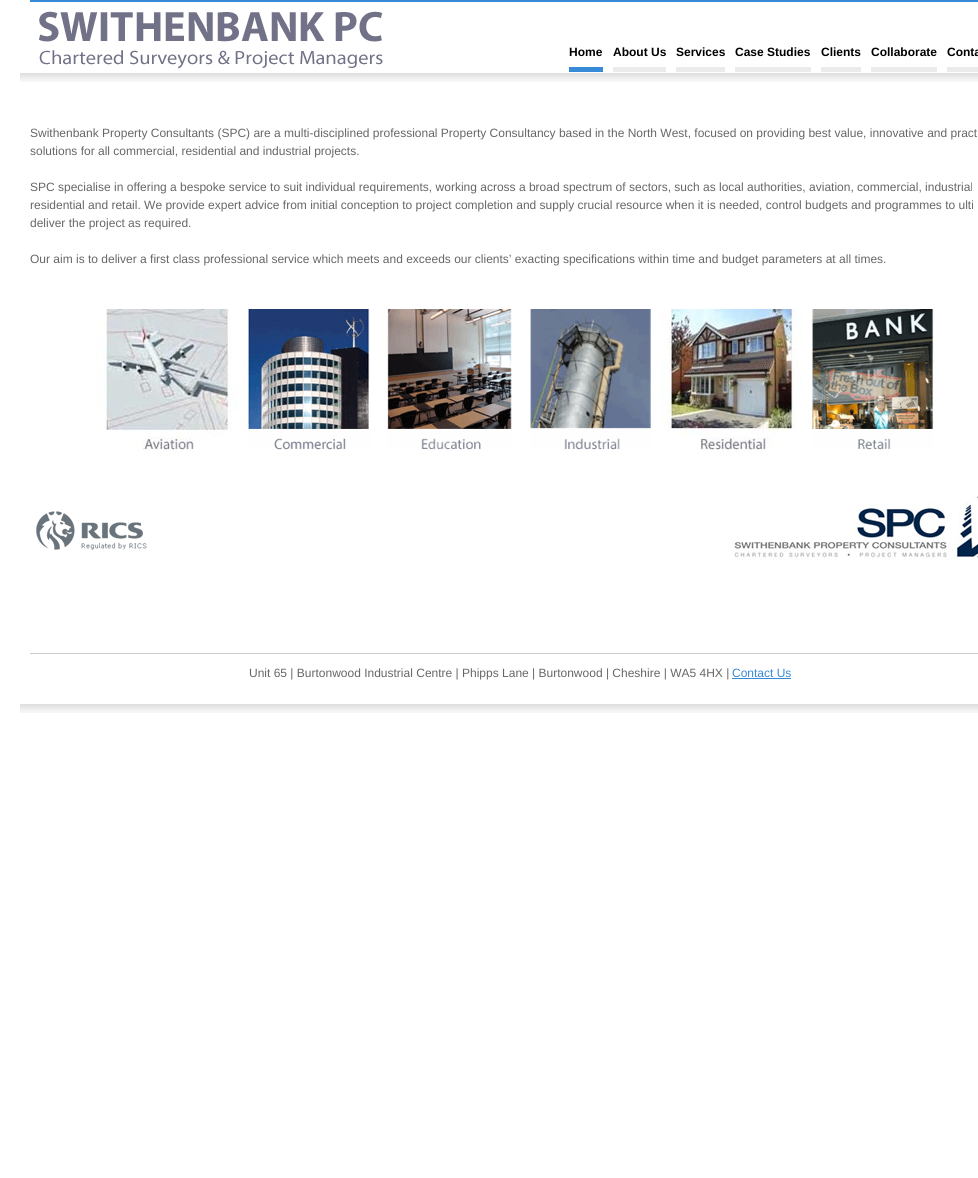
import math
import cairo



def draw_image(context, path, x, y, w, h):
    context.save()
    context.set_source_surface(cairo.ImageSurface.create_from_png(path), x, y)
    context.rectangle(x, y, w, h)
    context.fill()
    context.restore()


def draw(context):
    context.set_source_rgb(1, 1, 1)
    context.paint()
    context.set_source_rgb(55 / 255, 138 / 255, 215 / 255)
    context.rectangle(30, 0, 948, 2)
    context.fill()
    draw_image(context, "images/1.png", 39, 11, 344, 58)
    context.rectangle(569, 67, 34, 5)
    context.fill()
    context.set_source_rgb(235 / 255, 235 / 255, 235 / 255)
    context.rectangle(613, 67, 53, 5)
    context.fill()
    context.rectangle(676, 67, 49, 5)
    context.fill()
    context.rectangle(735, 67, 76, 5)
    context.fill()
    context.rectangle(821, 67, 40, 5)
    context.fill()
    context.rectangle(871, 67, 66, 5)
    context.fill()
    context.rectangle(947, 67, 31, 5)
    context.fill()
    draw_image(context, "images/2.png", 20, 73, 958, 9)
    draw_image(context, "images/3.png", 97, 309, 141, 144)
    draw_image(context, "images/4.png", 248, 309, 122, 141)
    draw_image(context, "images/5.png", 387, 309, 125, 141)
    draw_image(context, "images/6.png", 530, 309, 121, 141)
    draw_image(context, "images/7.png", 661, 309, 141, 144)
    draw_image(context, "images/8.png", 812, 309, 122, 141)
    draw_image(context, "images/9.png", 36, 496, 942, 64)
    context.set_source_rgb(204 / 255, 204 / 255, 204 / 255)
    context.rectangle(30, 653, 948, 1)
    context.fill()
    context.set_source_rgb(55 / 255, 138 / 255, 215 / 255)
    context.rectangle(732, 678, 59, 1)
    context.fill()
    draw_image(context, "images/2.png", 20, 704, 958, 9)
    context.select_font_face("Liberation Sans", cairo.FontSlant.NORMAL, cairo.FontWeight.BOLD)
    context.set_font_size(12)
    context.set_source_rgb(0, 0, 0)
    context.move_to(569, 56)
    context.show_text("Home")
    context.move_to(613, 56)
    context.show_text("About Us")
    context.move_to(676, 56)
    context.show_text("Services")
    context.move_to(735, 56)
    context.show_text("Case Studies")
    context.move_to(821, 56)
    context.show_text("Clients")
    context.move_to(871, 56)
    context.show_text("Collaborate")
    context.move_to(947, 56)
    context.show_text("Conta")
    context.select_font_face("Liberation Sans")
    context.set_source_rgb(102 / 255, 102 / 255, 102 / 255)
    context.move_to(30, 137)
    context.show_text("Swithenbank Property Consultants (SPC) are a multi-disciplined professional Property Consultancy based in the North West, focused on providing best value, innovative and pract")
    context.move_to(30, 155)
    context.show_text("solutions for all commercial, residential and industrial projects.")
    context.move_to(30, 191)
    context.show_text("SPC specialise in offering a bespoke service to suit individual requirements, working across a broad spectrum of sectors, such as local authorities, aviation, commercial, industrial")
    context.move_to(30, 209)
    context.show_text("residential and retail. We provide expert advice from initial conception to project completion and supply crucial resource when it is needed, control budgets and programmes to ulti")
    context.move_to(30, 227)
    context.show_text("deliver the project as required.")
    context.move_to(30, 263)
    context.show_text("Our aim is to deliver a first class professional service which meets and exceeds our clients’ exacting specifications within time and budget parameters at all times.")
    context.move_to(249, 677)
    context.show_text("Unit 65 | Burtonwood Industrial Centre | Phipps Lane | Burtonwood | Cheshire | WA5 4HX |")
    context.set_source_rgb(55 / 255, 138 / 255, 215 / 255)
    context.move_to(732, 677)
    context.show_text("Contact Us")


surface = cairo.ImageSurface(cairo.Format.RGB24, 978, 1178)
context = cairo.Context(surface)
options = cairo.FontOptions()
options.set_hint_metrics(cairo.HintMetrics.OFF)
options.set_hint_style(cairo.HintStyle.NONE)
context.set_font_options(options)
context.set_miter_limit(4)
draw(context)
surface.write_to_png("out.png")
